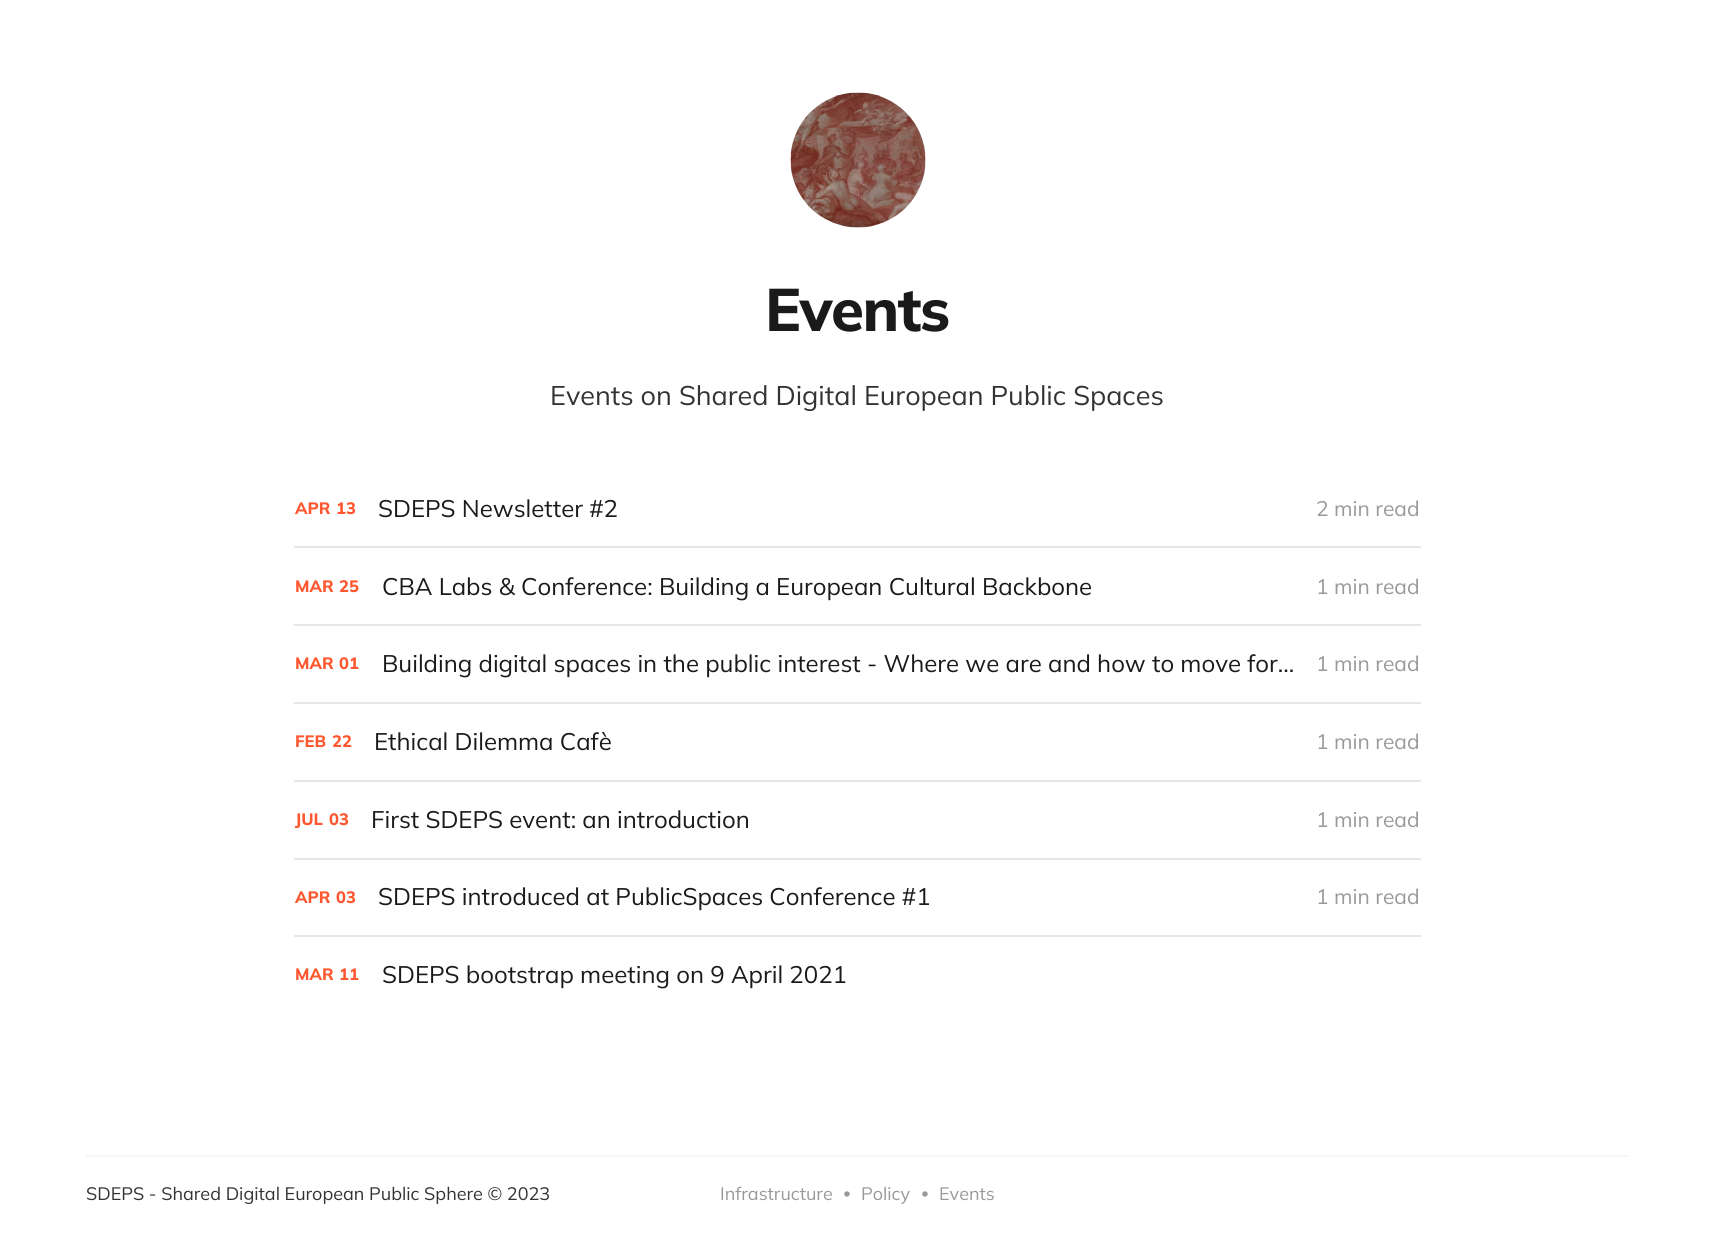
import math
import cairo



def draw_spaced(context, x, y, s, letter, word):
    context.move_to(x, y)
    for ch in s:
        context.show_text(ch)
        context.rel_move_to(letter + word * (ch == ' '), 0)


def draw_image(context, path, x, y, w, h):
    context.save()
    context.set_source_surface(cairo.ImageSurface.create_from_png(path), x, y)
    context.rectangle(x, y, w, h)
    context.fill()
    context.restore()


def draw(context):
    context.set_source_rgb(1, 1, 1)
    context.paint()
    context.set_source_rgb(246 / 255, 246 / 255, 246 / 255)
    context.arc(858.5, 160.5, 67.5, 0, 2 * math.pi)
    context.fill()
    draw_image(context, "images/1.png", 790, 92, 136, 136)
    context.set_source_rgb(230 / 255, 230 / 255, 230 / 255)
    context.rectangle(294, 546, 1127, 2)
    context.fill()
    context.rectangle(294, 624, 1127, 2)
    context.fill()
    context.rectangle(294, 702, 1127, 2)
    context.fill()
    context.rectangle(294, 780, 1127, 2)
    context.fill()
    context.rectangle(294, 858, 1127, 2)
    context.fill()
    context.rectangle(294, 935, 1127, 2)
    context.fill()
    context.set_source_rgb(246 / 255, 246 / 255, 246 / 255)
    context.rectangle(86, 1155, 1543, 2)
    context.fill()
    context.select_font_face("Mulish ExtraBold")
    context.set_font_size(60)
    context.set_source_rgb(26 / 255, 26 / 255, 26 / 255)
    draw_spaced(context, 765, 331, "Events", -1.5, 0)
    context.select_font_face("Mulish")
    context.set_font_size(27)
    context.set_source_rgb(51 / 255, 51 / 255, 51 / 255)
    context.move_to(550, 405)
    context.show_text("Events on Shared Digital European Public Spaces")
    context.select_font_face("Mulish ExtraBold")
    context.set_font_size(16.5)
    context.set_source_rgb(1, 87 / 255, 47 / 255)
    context.move_to(295, 514)
    context.show_text("APR")
    context.move_to(336, 514)
    context.show_text("13")
    context.select_font_face("Mulish")
    context.set_font_size(24)
    context.set_source_rgb(26 / 255, 26 / 255, 26 / 255)
    context.move_to(378, 517)
    context.show_text("SDEPS Newsletter #2")
    context.set_font_size(21)
    context.set_source_rgb(153 / 255, 153 / 255, 153 / 255)
    context.move_to(1316, 516)
    context.show_text("2 min read")
    context.select_font_face("Mulish ExtraBold")
    context.set_font_size(16.5)
    context.set_source_rgb(1, 87 / 255, 47 / 255)
    context.move_to(295, 592)
    context.show_text("MAR")
    context.move_to(339, 592)
    context.show_text("25")
    context.select_font_face("Mulish")
    context.set_font_size(24)
    context.set_source_rgb(26 / 255, 26 / 255, 26 / 255)
    context.move_to(382, 595)
    context.show_text("CBA Labs & Conference: Building a European Cultural Backbone")
    context.set_font_size(21)
    context.set_source_rgb(153 / 255, 153 / 255, 153 / 255)
    context.move_to(1316, 594)
    context.show_text("1 min read")
    context.select_font_face("Mulish ExtraBold")
    context.set_font_size(16.5)
    context.set_source_rgb(1, 87 / 255, 47 / 255)
    context.move_to(295, 669)
    context.show_text("MAR")
    context.move_to(339, 669)
    context.show_text("01")
    context.select_font_face("Mulish")
    context.set_font_size(24)
    context.set_source_rgb(26 / 255, 26 / 255, 26 / 255)
    context.move_to(382, 672)
    context.show_text("Building digital spaces in the public interest - Where we are and how to move for…")
    context.set_font_size(21)
    context.set_source_rgb(153 / 255, 153 / 255, 153 / 255)
    context.move_to(1316, 671)
    context.show_text("1 min read")
    context.select_font_face("Mulish ExtraBold")
    context.set_font_size(16.5)
    context.set_source_rgb(1, 87 / 255, 47 / 255)
    context.move_to(295, 747)
    context.show_text("FEB")
    context.move_to(332, 747)
    context.show_text("22")
    context.select_font_face("Mulish")
    context.set_font_size(24)
    context.set_source_rgb(26 / 255, 26 / 255, 26 / 255)
    context.move_to(374, 750)
    context.show_text("Ethical Dilemma Cafè")
    context.set_font_size(21)
    context.set_source_rgb(153 / 255, 153 / 255, 153 / 255)
    context.move_to(1316, 749)
    context.show_text("1 min read")
    context.select_font_face("Mulish ExtraBold")
    context.set_font_size(16.5)
    context.set_source_rgb(1, 87 / 255, 47 / 255)
    context.move_to(295, 825)
    context.show_text("JUL")
    context.move_to(329, 825)
    context.show_text("03")
    context.select_font_face("Mulish")
    context.set_font_size(24)
    context.set_source_rgb(26 / 255, 26 / 255, 26 / 255)
    context.move_to(371, 828)
    context.show_text("First SDEPS event: an introduction")
    context.set_font_size(21)
    context.set_source_rgb(153 / 255, 153 / 255, 153 / 255)
    context.move_to(1316, 827)
    context.show_text("1 min read")
    context.select_font_face("Mulish ExtraBold")
    context.set_font_size(16.5)
    context.set_source_rgb(1, 87 / 255, 47 / 255)
    context.move_to(295, 903)
    context.show_text("APR")
    context.move_to(336, 903)
    context.show_text("03")
    context.select_font_face("Mulish")
    context.set_font_size(24)
    context.set_source_rgb(26 / 255, 26 / 255, 26 / 255)
    context.move_to(378, 905)
    context.show_text("SDEPS introduced at PublicSpaces Conference #1")
    context.set_font_size(21)
    context.set_source_rgb(153 / 255, 153 / 255, 153 / 255)
    context.move_to(1316, 904)
    context.show_text("1 min read")
    context.select_font_face("Mulish ExtraBold")
    context.set_font_size(16.5)
    context.set_source_rgb(1, 87 / 255, 47 / 255)
    context.move_to(295, 980)
    context.show_text("MAR")
    context.move_to(339, 980)
    context.show_text("11")
    context.select_font_face("Mulish")
    context.set_font_size(24)
    context.set_source_rgb(26 / 255, 26 / 255, 26 / 255)
    context.move_to(382, 983)
    context.show_text("SDEPS bootstrap meeting on 9 April 2021")
    context.set_font_size(18)
    context.set_source_rgb(51 / 255, 51 / 255, 51 / 255)
    context.move_to(86, 1200)
    context.show_text("SDEPS - Shared Digital European Public Sphere © 2023")
    context.set_source_rgb(153 / 255, 153 / 255, 153 / 255)
    context.move_to(720, 1200)
    context.show_text("Infrastructure")
    context.set_font_size(15)
    context.move_to(843, 1198)
    context.show_text("•")
    context.set_font_size(18)
    context.move_to(861, 1200)
    context.show_text("Policy")
    context.set_font_size(15)
    context.move_to(921, 1198)
    context.show_text("•")
    context.set_font_size(18)
    context.move_to(939, 1200)
    context.show_text("Events")


surface = cairo.ImageSurface(cairo.Format.RGB24, 1714, 1251)
context = cairo.Context(surface)
options = cairo.FontOptions()
options.set_hint_metrics(cairo.HintMetrics.OFF)
options.set_hint_style(cairo.HintStyle.NONE)
context.set_font_options(options)
context.set_miter_limit(4)
draw(context)
surface.write_to_png("out.png")
